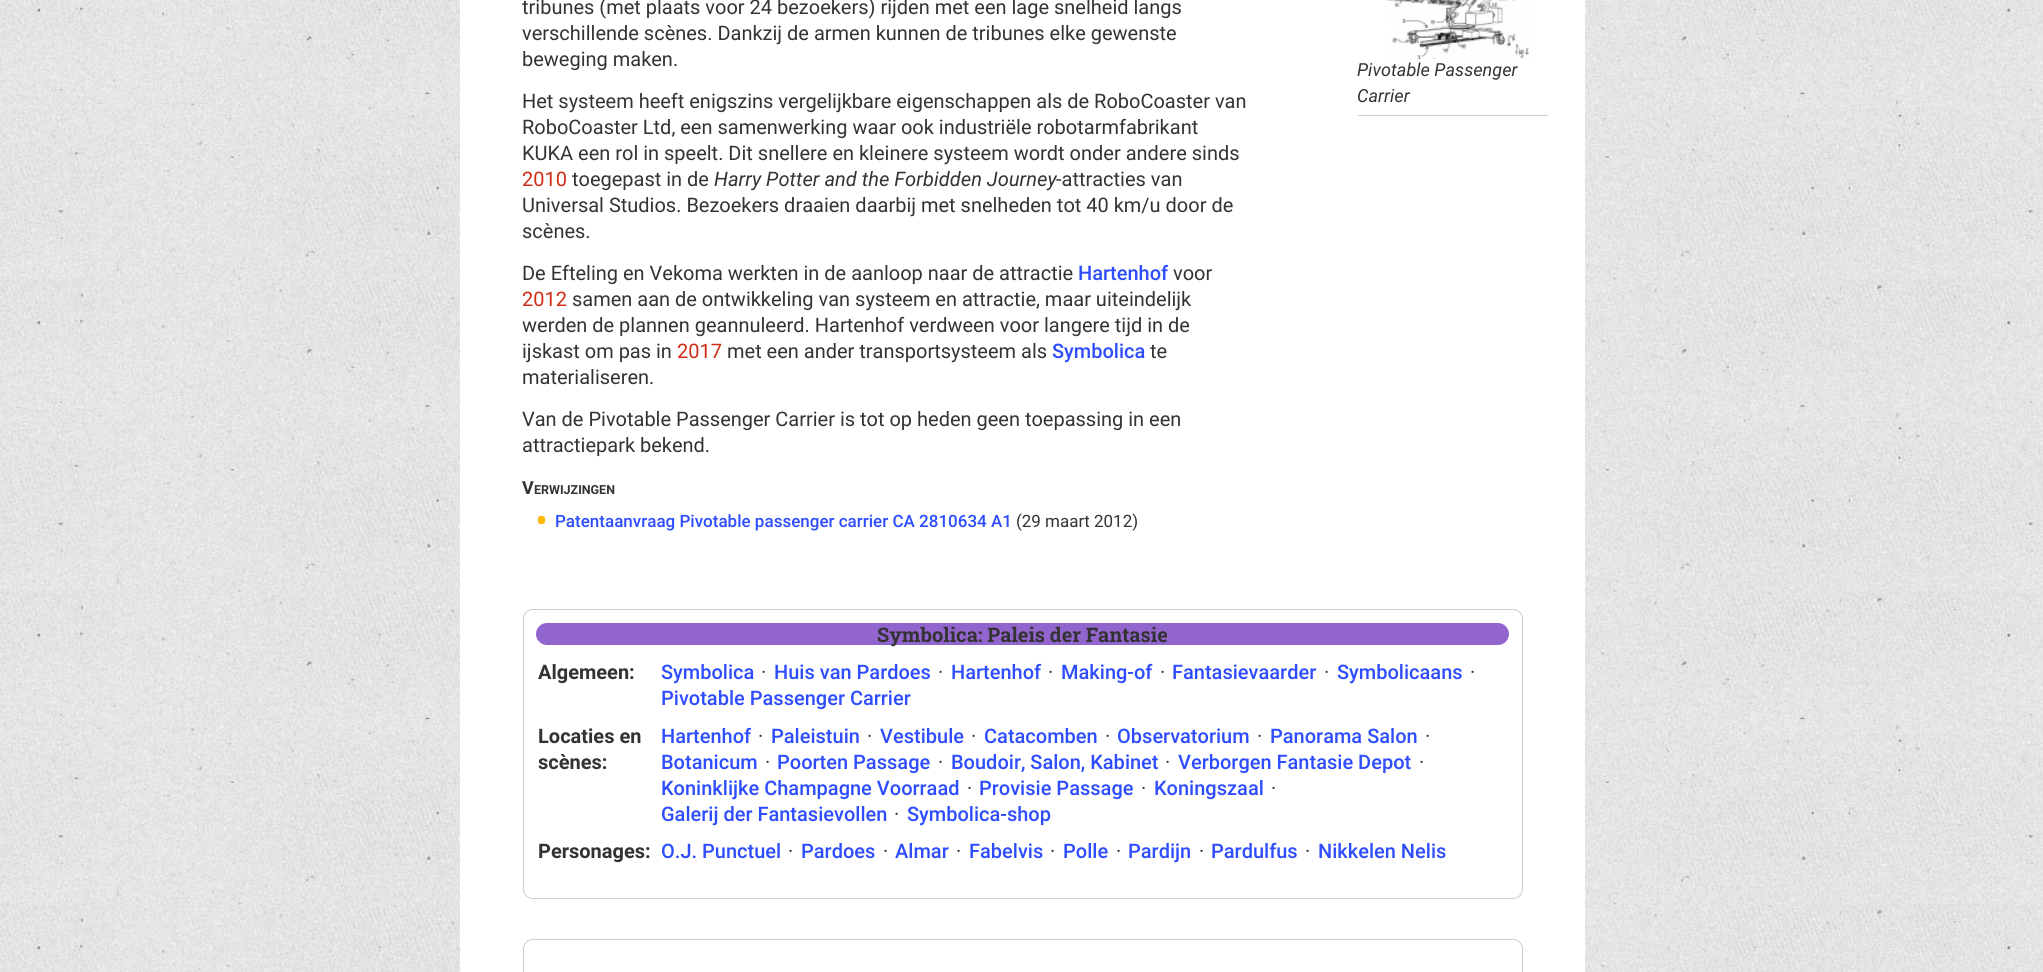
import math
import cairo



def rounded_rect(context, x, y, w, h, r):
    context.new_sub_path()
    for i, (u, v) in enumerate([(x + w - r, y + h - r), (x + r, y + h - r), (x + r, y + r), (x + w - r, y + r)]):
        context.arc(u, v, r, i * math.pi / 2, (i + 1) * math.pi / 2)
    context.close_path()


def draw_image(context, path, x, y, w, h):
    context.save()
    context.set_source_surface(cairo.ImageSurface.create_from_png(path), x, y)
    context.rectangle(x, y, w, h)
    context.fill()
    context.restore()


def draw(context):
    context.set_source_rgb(1, 1, 1)
    context.paint()
    draw_image(context, "images/1.png", 0, 0, 2043, 972)
    context.set_source_rgb(1, 1, 1)
    context.rectangle(460, 0, 1125, 972)
    context.fill()
    context.set_source_rgb(204 / 255, 204 / 255, 204 / 255)
    context.rectangle(1358, 115, 190, 1)
    context.fill()
    draw_image(context, "images/2.png", 1386, 0, 150, 59)
    context.set_source_rgb(1, 184 / 255, 1 / 255)
    rounded_rect(context, 538, 516, 7, 8, 2.5)
    context.fill()
    rounded_rect(context, 523.5, 609.5, 999, 289, 9.5)
    context.set_source_rgb(204 / 255, 204 / 255, 204 / 255)
    context.set_line_width(1)
    context.stroke()
    context.set_source_rgb(146 / 255, 100 / 255, 205 / 255)
    rounded_rect(context, 536, 623, 973, 22, 11)
    context.fill()
    rounded_rect(context, 523.5, 939.5, 999, 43, 9.5)
    context.set_source_rgb(204 / 255, 204 / 255, 204 / 255)
    context.stroke()
    context.select_font_face("Roboto")
    context.set_font_size(20)
    context.set_source_rgb(51 / 255, 51 / 255, 51 / 255)
    context.move_to(522, 14)
    context.show_text("tribunes (met plaats voor 24 bezoekers) rijden met een lage snelheid langs")
    context.move_to(522, 40)
    context.show_text("verschillende scènes. Dankzij de armen kunnen de tribunes elke gewenste")
    context.move_to(522, 66)
    context.show_text("beweging maken.")
    context.select_font_face("Roboto", cairo.FontSlant.ITALIC)
    context.set_font_size(18)
    context.move_to(1357, 76)
    context.show_text("Pivotable Passenger")
    context.move_to(1357, 102)
    context.show_text("Carrier")
    context.select_font_face("Roboto")
    context.set_font_size(20)
    context.move_to(522, 108)
    context.show_text("Het systeem heeft enigszins vergelijkbare eigenschappen als de RoboCoaster van")
    context.move_to(522, 134)
    context.show_text("RoboCoaster Ltd, een samenwerking waar ook industriële robotarmfabrikant")
    context.move_to(522, 160)
    context.show_text("KUKA een rol in speelt. Dit snellere en kleinere systeem wordt onder andere sinds")
    context.set_source_rgb(206 / 255, 42 / 255, 20 / 255)
    context.move_to(522, 186)
    context.show_text("2010")
    context.set_source_rgb(51 / 255, 51 / 255, 51 / 255)
    context.move_to(572, 186)
    context.show_text("toegepast in de")
    context.select_font_face("Roboto", cairo.FontSlant.ITALIC)
    context.move_to(714, 186)
    context.show_text("Harry Potter and the Forbidden Journey")
    context.select_font_face("Roboto")
    context.move_to(1056, 186)
    context.show_text("-attracties van")
    context.move_to(522, 212)
    context.show_text("Universal Studios. Bezoekers draaien daarbij met snelheden tot 40 km/u door de")
    context.move_to(522, 238)
    context.show_text("scènes.")
    context.move_to(522, 280)
    context.show_text("De Efteling en Vekoma werkten in de aanloop naar de attractie")
    context.select_font_face("Roboto Medium")
    context.set_source_rgb(46 / 255, 77 / 255, 1)
    context.move_to(1078, 280)
    context.show_text("Hartenhof")
    context.select_font_face("Roboto")
    context.set_source_rgb(51 / 255, 51 / 255, 51 / 255)
    context.move_to(1173, 280)
    context.show_text("voor")
    context.set_source_rgb(206 / 255, 42 / 255, 20 / 255)
    context.move_to(522, 306)
    context.show_text("2012")
    context.set_source_rgb(51 / 255, 51 / 255, 51 / 255)
    context.move_to(572, 306)
    context.show_text("samen aan de ontwikkeling van systeem en attractie, maar uiteindelijk")
    context.move_to(522, 332)
    context.show_text("werden de plannen geannuleerd. Hartenhof verdween voor langere tijd in de")
    context.move_to(522, 358)
    context.show_text("ijskast om pas in")
    context.set_source_rgb(206 / 255, 42 / 255, 20 / 255)
    context.move_to(677, 358)
    context.show_text("2017")
    context.set_source_rgb(51 / 255, 51 / 255, 51 / 255)
    context.move_to(727, 358)
    context.show_text("met een ander transportsysteem als")
    context.select_font_face("Roboto Medium")
    context.set_source_rgb(46 / 255, 77 / 255, 1)
    context.move_to(1052, 358)
    context.show_text("Symbolica")
    context.select_font_face("Roboto")
    context.set_source_rgb(51 / 255, 51 / 255, 51 / 255)
    context.move_to(1150, 358)
    context.show_text("te")
    context.move_to(522, 384)
    context.show_text("materialiseren.")
    context.move_to(522, 426)
    context.show_text("Van de Pivotable Passenger Carrier is tot op heden geen toepassing in een")
    context.move_to(522, 452)
    context.show_text("attractiepark bekend.")
    context.select_font_face("Roboto", cairo.FontSlant.NORMAL, cairo.FontWeight.BOLD)
    context.set_font_size(18)
    context.move_to(522, 494)
    context.show_text("V")
    context.set_font_size(12.5)
    context.move_to(534, 494)
    context.show_text("ERWIJZINGEN")
    context.select_font_face("Roboto Medium")
    context.set_font_size(17)
    context.set_source_rgb(46 / 255, 77 / 255, 1)
    context.move_to(555, 527)
    context.show_text("Patentaanvraag Pivotable passenger carrier CA 2810634 A1")
    context.select_font_face("Roboto")
    context.set_source_rgb(51 / 255, 51 / 255, 51 / 255)
    context.move_to(1016, 527)
    context.show_text("(29 maart 2012)")
    context.select_font_face("Roboto Slab", cairo.FontSlant.NORMAL, cairo.FontWeight.BOLD)
    context.set_font_size(20)
    context.move_to(877, 642)
    context.show_text("Symbolica: Paleis der Fantasie")
    context.select_font_face("Roboto", cairo.FontSlant.NORMAL, cairo.FontWeight.BOLD)
    context.move_to(538, 679)
    context.show_text("Algemeen:")
    context.select_font_face("Roboto Medium")
    context.set_source_rgb(46 / 255, 77 / 255, 1)
    context.move_to(661, 679)
    context.show_text("Symbolica")
    context.select_font_face("Roboto")
    context.set_source_rgb(51 / 255, 51 / 255, 51 / 255)
    context.move_to(761, 679)
    context.show_text("·")
    context.select_font_face("Roboto Medium")
    context.set_source_rgb(46 / 255, 77 / 255, 1)
    context.move_to(774, 679)
    context.show_text("Huis van Pardoes")
    context.select_font_face("Roboto")
    context.set_source_rgb(51 / 255, 51 / 255, 51 / 255)
    context.move_to(938, 679)
    context.show_text("·")
    context.select_font_face("Roboto Medium")
    context.set_source_rgb(46 / 255, 77 / 255, 1)
    context.move_to(951, 679)
    context.show_text("Hartenhof")
    context.select_font_face("Roboto")
    context.set_source_rgb(51 / 255, 51 / 255, 51 / 255)
    context.move_to(1048, 679)
    context.show_text("·")
    context.select_font_face("Roboto Medium")
    context.set_source_rgb(46 / 255, 77 / 255, 1)
    context.move_to(1061, 679)
    context.show_text("Making-of")
    context.select_font_face("Roboto")
    context.set_source_rgb(51 / 255, 51 / 255, 51 / 255)
    context.move_to(1160, 679)
    context.show_text("·")
    context.select_font_face("Roboto Medium")
    context.set_source_rgb(46 / 255, 77 / 255, 1)
    context.move_to(1172, 679)
    context.show_text("Fantasievaarder")
    context.select_font_face("Roboto")
    context.set_source_rgb(51 / 255, 51 / 255, 51 / 255)
    context.move_to(1324, 679)
    context.show_text("·")
    context.select_font_face("Roboto Medium")
    context.set_source_rgb(46 / 255, 77 / 255, 1)
    context.move_to(1337, 679)
    context.show_text("Symbolicaans")
    context.select_font_face("Roboto")
    context.set_source_rgb(51 / 255, 51 / 255, 51 / 255)
    context.move_to(1470, 679)
    context.show_text("·")
    context.select_font_face("Roboto Medium")
    context.set_source_rgb(46 / 255, 77 / 255, 1)
    context.move_to(661, 705)
    context.show_text("Pivotable Passenger Carrier")
    context.select_font_face("Roboto", cairo.FontSlant.NORMAL, cairo.FontWeight.BOLD)
    context.set_source_rgb(51 / 255, 51 / 255, 51 / 255)
    context.move_to(538, 743)
    context.show_text("Locaties en")
    context.move_to(538, 769)
    context.show_text("scènes:")
    context.select_font_face("Roboto Medium")
    context.set_source_rgb(46 / 255, 77 / 255, 1)
    context.move_to(661, 743)
    context.show_text("Hartenhof")
    context.select_font_face("Roboto")
    context.set_source_rgb(51 / 255, 51 / 255, 51 / 255)
    context.move_to(758, 743)
    context.show_text("·")
    context.select_font_face("Roboto Medium")
    context.set_source_rgb(46 / 255, 77 / 255, 1)
    context.move_to(771, 743)
    context.show_text("Paleistuin")
    context.select_font_face("Roboto")
    context.set_source_rgb(51 / 255, 51 / 255, 51 / 255)
    context.move_to(867, 743)
    context.show_text("·")
    context.select_font_face("Roboto Medium")
    context.set_source_rgb(46 / 255, 77 / 255, 1)
    context.move_to(880, 743)
    context.show_text("Vestibule")
    context.select_font_face("Roboto")
    context.set_source_rgb(51 / 255, 51 / 255, 51 / 255)
    context.move_to(971, 743)
    context.show_text("·")
    context.select_font_face("Roboto Medium")
    context.set_source_rgb(46 / 255, 77 / 255, 1)
    context.move_to(984, 743)
    context.show_text("Catacomben")
    context.select_font_face("Roboto")
    context.set_source_rgb(51 / 255, 51 / 255, 51 / 255)
    context.move_to(1105, 743)
    context.show_text("·")
    context.select_font_face("Roboto Medium")
    context.set_source_rgb(46 / 255, 77 / 255, 1)
    context.move_to(1117, 743)
    context.show_text("Observatorium")
    context.select_font_face("Roboto")
    context.set_source_rgb(51 / 255, 51 / 255, 51 / 255)
    context.move_to(1257, 743)
    context.show_text("·")
    context.select_font_face("Roboto Medium")
    context.set_source_rgb(46 / 255, 77 / 255, 1)
    context.move_to(1270, 743)
    context.show_text("Panorama Salon")
    context.select_font_face("Roboto")
    context.set_source_rgb(51 / 255, 51 / 255, 51 / 255)
    context.move_to(1425, 743)
    context.show_text("·")
    context.select_font_face("Roboto Medium")
    context.set_source_rgb(46 / 255, 77 / 255, 1)
    context.move_to(661, 769)
    context.show_text("Botanicum")
    context.select_font_face("Roboto")
    context.set_source_rgb(51 / 255, 51 / 255, 51 / 255)
    context.move_to(765, 769)
    context.show_text("·")
    context.select_font_face("Roboto Medium")
    context.set_source_rgb(46 / 255, 77 / 255, 1)
    context.move_to(777, 769)
    context.show_text("Poorten Passage")
    context.select_font_face("Roboto")
    context.set_source_rgb(51 / 255, 51 / 255, 51 / 255)
    context.move_to(938, 769)
    context.show_text("·")
    context.select_font_face("Roboto Medium")
    context.set_source_rgb(46 / 255, 77 / 255, 1)
    context.move_to(951, 769)
    context.show_text("Boudoir, Salon, Kabinet")
    context.select_font_face("Roboto")
    context.set_source_rgb(51 / 255, 51 / 255, 51 / 255)
    context.move_to(1165, 769)
    context.show_text("·")
    context.select_font_face("Roboto Medium")
    context.set_source_rgb(46 / 255, 77 / 255, 1)
    context.move_to(1178, 769)
    context.show_text("Verborgen Fantasie Depot")
    context.select_font_face("Roboto")
    context.set_source_rgb(51 / 255, 51 / 255, 51 / 255)
    context.move_to(1419, 769)
    context.show_text("·")
    context.select_font_face("Roboto Medium")
    context.set_source_rgb(46 / 255, 77 / 255, 1)
    context.move_to(661, 795)
    context.show_text("Koninklijke Champagne Voorraad")
    context.select_font_face("Roboto")
    context.set_source_rgb(51 / 255, 51 / 255, 51 / 255)
    context.move_to(967, 795)
    context.show_text("·")
    context.select_font_face("Roboto Medium")
    context.set_source_rgb(46 / 255, 77 / 255, 1)
    context.move_to(979, 795)
    context.show_text("Provisie Passage")
    context.select_font_face("Roboto")
    context.set_source_rgb(51 / 255, 51 / 255, 51 / 255)
    context.move_to(1141, 795)
    context.show_text("·")
    context.select_font_face("Roboto Medium")
    context.set_source_rgb(46 / 255, 77 / 255, 1)
    context.move_to(1154, 795)
    context.show_text("Koningszaal")
    context.select_font_face("Roboto")
    context.set_source_rgb(51 / 255, 51 / 255, 51 / 255)
    context.move_to(1271, 795)
    context.show_text("·")
    context.select_font_face("Roboto Medium")
    context.set_source_rgb(46 / 255, 77 / 255, 1)
    context.move_to(661, 821)
    context.show_text("Galerij der Fantasievollen")
    context.select_font_face("Roboto")
    context.set_source_rgb(51 / 255, 51 / 255, 51 / 255)
    context.move_to(894, 821)
    context.show_text("·")
    context.select_font_face("Roboto Medium")
    context.set_source_rgb(46 / 255, 77 / 255, 1)
    context.move_to(907, 821)
    context.show_text("Symbolica-shop")
    context.select_font_face("Roboto", cairo.FontSlant.NORMAL, cairo.FontWeight.BOLD)
    context.set_source_rgb(51 / 255, 51 / 255, 51 / 255)
    context.move_to(538, 858)
    context.show_text("Personages:")
    context.select_font_face("Roboto Medium")
    context.set_source_rgb(46 / 255, 77 / 255, 1)
    context.move_to(661, 858)
    context.show_text("O.J. Punctuel")
    context.select_font_face("Roboto")
    context.set_source_rgb(51 / 255, 51 / 255, 51 / 255)
    context.move_to(788, 858)
    context.show_text("·")
    context.select_font_face("Roboto Medium")
    context.set_source_rgb(46 / 255, 77 / 255, 1)
    context.move_to(801, 858)
    context.show_text("Pardoes")
    context.select_font_face("Roboto")
    context.set_source_rgb(51 / 255, 51 / 255, 51 / 255)
    context.move_to(883, 858)
    context.show_text("·")
    context.select_font_face("Roboto Medium")
    context.set_source_rgb(46 / 255, 77 / 255, 1)
    context.move_to(895, 858)
    context.show_text("Almar")
    context.select_font_face("Roboto")
    context.set_source_rgb(51 / 255, 51 / 255, 51 / 255)
    context.move_to(956, 858)
    context.show_text("·")
    context.select_font_face("Roboto Medium")
    context.set_source_rgb(46 / 255, 77 / 255, 1)
    context.move_to(969, 858)
    context.show_text("Fabelvis")
    context.select_font_face("Roboto")
    context.set_source_rgb(51 / 255, 51 / 255, 51 / 255)
    context.move_to(1050, 858)
    context.show_text("·")
    context.select_font_face("Roboto Medium")
    context.set_source_rgb(46 / 255, 77 / 255, 1)
    context.move_to(1063, 858)
    context.show_text("Polle")
    context.select_font_face("Roboto")
    context.set_source_rgb(51 / 255, 51 / 255, 51 / 255)
    context.move_to(1116, 858)
    context.show_text("·")
    context.select_font_face("Roboto Medium")
    context.set_source_rgb(46 / 255, 77 / 255, 1)
    context.move_to(1128, 858)
    context.show_text("Pardijn")
    context.select_font_face("Roboto")
    context.set_source_rgb(51 / 255, 51 / 255, 51 / 255)
    context.move_to(1199, 858)
    context.show_text("·")
    context.select_font_face("Roboto Medium")
    context.set_source_rgb(46 / 255, 77 / 255, 1)
    context.move_to(1211, 858)
    context.show_text("Pardulfus")
    context.select_font_face("Roboto")
    context.set_source_rgb(51 / 255, 51 / 255, 51 / 255)
    context.move_to(1305, 858)
    context.show_text("·")
    context.select_font_face("Roboto Medium")
    context.set_source_rgb(46 / 255, 77 / 255, 1)
    context.move_to(1318, 858)
    context.show_text("Nikkelen Nelis")


surface = cairo.ImageSurface(cairo.Format.RGB24, 2043, 972)
context = cairo.Context(surface)
options = cairo.FontOptions()
options.set_hint_metrics(cairo.HintMetrics.OFF)
options.set_hint_style(cairo.HintStyle.NONE)
context.set_font_options(options)
context.set_miter_limit(4)
draw(context)
surface.write_to_png("out.png")
